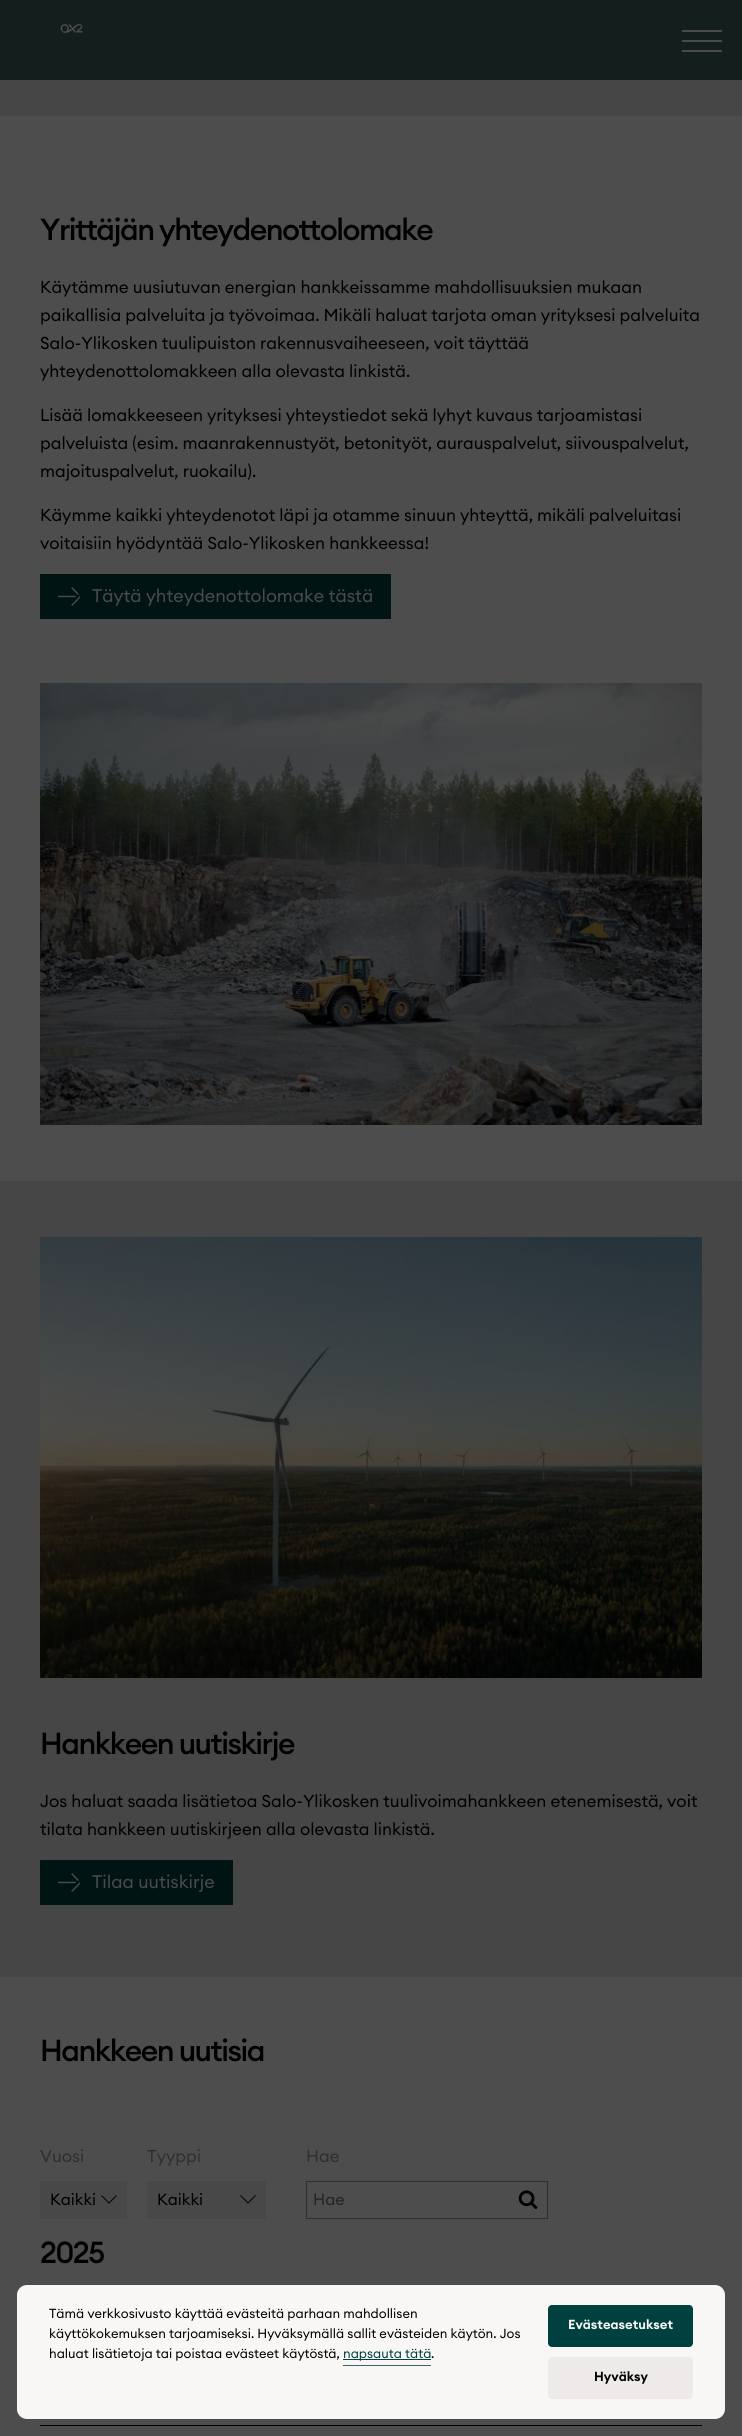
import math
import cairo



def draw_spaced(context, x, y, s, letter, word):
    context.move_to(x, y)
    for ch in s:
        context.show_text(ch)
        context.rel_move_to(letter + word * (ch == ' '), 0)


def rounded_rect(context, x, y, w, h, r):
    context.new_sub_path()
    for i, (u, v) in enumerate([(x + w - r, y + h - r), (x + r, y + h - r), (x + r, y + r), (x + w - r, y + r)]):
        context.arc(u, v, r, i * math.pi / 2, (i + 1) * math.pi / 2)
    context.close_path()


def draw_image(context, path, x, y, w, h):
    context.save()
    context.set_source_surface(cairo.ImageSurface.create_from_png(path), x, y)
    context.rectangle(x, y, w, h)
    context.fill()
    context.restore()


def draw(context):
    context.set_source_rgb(77 / 255, 77 / 255, 77 / 255)
    context.paint()
    context.set_source_rgb(20 / 255, 31 / 255, 29 / 255)
    context.rectangle(0, 0, 742, 80)
    context.fill()
    draw_image(context, "images/1.png", 60, 24, 23, 9)
    context.set_source_rgb(74 / 255, 74 / 255, 74 / 255)
    context.rectangle(682, 30, 40, 2)
    context.fill()
    context.rectangle(682, 50, 40, 2)
    context.fill()
    context.rectangle(682, 40, 40, 2)
    context.fill()
    context.set_source_rgb(71 / 255, 70 / 255, 70 / 255)
    context.rectangle(0, 80, 40, 36)
    context.fill()
    context.rectangle(40, 80, 702, 36)
    context.fill()
    context.set_source_rgb(0, 20 / 255, 19 / 255)
    context.rectangle(40, 574, 351, 45)
    context.fill()
    draw_image(context, "images/2.png", 58, 587, 22, 19)
    draw_image(context, "images/3.png", 40, 683, 662, 442)
    context.set_source_rgb(71 / 255, 70 / 255, 70 / 255)
    context.rectangle(0, 1181, 742, 796)
    context.fill()
    draw_image(context, "images/4.png", 40, 1237, 662, 441)
    context.set_source_rgb(0, 20 / 255, 19 / 255)
    context.rectangle(40, 1860, 193, 45)
    context.fill()
    draw_image(context, "images/2.png", 58, 1873, 22, 19)
    context.set_source_rgb(72 / 255, 72 / 255, 72 / 255)
    context.rectangle(40, 2181, 87, 38)
    context.fill()
    context.new_path()
    context.move_to(101.5, 2195.5)
    context.line_to(109, 2203)
    context.line_to(116.5, 2195.5)
    context.set_source_rgb(0, 0, 0)
    context.set_line_width(1)
    context.set_line_join(cairo.LineJoin.ROUND)
    context.stroke()
    context.set_source_rgb(72 / 255, 72 / 255, 72 / 255)
    context.rectangle(147, 2181, 119, 38)
    context.fill()
    context.new_path()
    context.move_to(240.5, 2195.5)
    context.line_to(248, 2203)
    context.line_to(255.5, 2195.5)
    context.set_source_rgb(0, 0, 0)
    context.stroke()
    context.rectangle(306.5, 2181.5, 241, 37)
    context.set_source_rgb(47 / 255, 47 / 255, 46 / 255)
    context.set_line_join(cairo.LineJoin.MITER)
    context.stroke()
    draw_image(context, "images/5.png", 518, 2190, 20, 19)
    context.set_source_rgb(0, 0, 0)
    context.rectangle(40, 2425, 662, 1)
    context.fill()
    context.set_source_rgb(248 / 255, 247 / 255, 246 / 255)
    rounded_rect(context, 17, 2285, 708, 134, 10)
    context.fill()
    context.set_source_rgb(0, 65 / 255, 64 / 255)
    context.rectangle(343, 2359, 88, 1)
    context.fill()
    context.set_source_rgb(65 / 255, 102 / 255, 97 / 255)
    context.rectangle(343, 2365, 88, 1)
    context.fill()
    context.set_source_rgb(0, 65 / 255, 64 / 255)
    rounded_rect(context, 548, 2305, 145, 42, 4)
    context.fill()
    context.set_source_rgb(238 / 255, 234 / 255, 233 / 255)
    rounded_rect(context, 548, 2357, 145, 42, 4)
    context.fill()
    context.select_font_face("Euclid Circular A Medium")
    context.set_font_size(30)
    context.set_source_rgb(0, 0, 0)
    draw_spaced(context, 40, 240, "Yrittäjän yhteydenottolomake", -1.5, 0)
    context.select_font_face("Euclid Circular A")
    context.set_font_size(17)
    context.move_to(40, 293)
    context.show_text("Käytämme uusiutuvan energian hankkeissamme mahdollisuuksien mukaan")
    context.move_to(40, 321)
    context.show_text("paikallisia palveluita ja työvoimaa. Mikäli haluat tarjota oman yrityksesi palveluita")
    context.move_to(40, 349)
    context.show_text("Salo-Ylikosken tuulipuiston rakennusvaiheeseen, voit täyttää")
    context.move_to(40, 377)
    context.show_text("yhteydenottolomakkeen alla olevasta linkistä.")
    context.move_to(40, 421)
    context.show_text("Lisää lomakkeeseen yrityksesi yhteystiedot sekä lyhyt kuvaus tarjoamistasi")
    context.move_to(40, 449)
    context.show_text("palveluista (esim. maanrakennustyöt, betonityöt, aurauspalvelut, siivouspalvelut,")
    context.move_to(40, 477)
    context.show_text("majoituspalvelut, ruokailu).")
    context.move_to(40, 521)
    context.show_text("Käymme kaikki yhteydenotot läpi ja otamme sinuun yhteyttä, mikäli palveluitasi")
    context.move_to(40, 549)
    context.show_text("voitaisiin hyödyntää Salo-Ylikosken hankkeessa!")
    context.set_font_size(18)
    context.set_source_rgb(74 / 255, 74 / 255, 74 / 255)
    context.move_to(92, 602)
    context.show_text("Täytä yhteydenottolomake tästä")
    context.select_font_face("Euclid Circular A Medium")
    context.set_font_size(30)
    context.set_source_rgb(0, 0, 0)
    draw_spaced(context, 40, 1754, "Hankkeen uutiskirje", -1.5, 0)
    context.select_font_face("Euclid Circular A")
    context.set_font_size(17)
    context.move_to(40, 1807)
    context.show_text("Jos haluat saada lisätietoa Salo-Ylikosken tuulivoimahankkeen etenemisestä, voit")
    context.move_to(40, 1835)
    context.show_text("tilata hankkeen uutiskirjeen alla olevasta linkistä.")
    context.set_font_size(18)
    context.set_source_rgb(74 / 255, 74 / 255, 74 / 255)
    context.move_to(92, 1888)
    context.show_text("Tilaa uutiskirje")
    context.select_font_face("Euclid Circular A Medium")
    context.set_font_size(30)
    context.set_source_rgb(0, 0, 0)
    draw_spaced(context, 40, 2061, "Hankkeen uutisia", -1.5, 0)
    context.select_font_face("Euclid Circular A")
    context.set_font_size(17)
    context.set_source_rgb(47 / 255, 47 / 255, 46 / 255)
    context.move_to(40, 2162)
    context.show_text("Vuosi")
    context.set_font_size(16)
    context.set_source_rgb(0, 0, 0)
    context.move_to(50, 2205)
    context.show_text("Kaikki")
    context.set_font_size(17)
    context.set_source_rgb(47 / 255, 47 / 255, 46 / 255)
    context.move_to(147, 2162)
    context.show_text("Tyyppi")
    context.set_font_size(16)
    context.set_source_rgb(0, 0, 0)
    context.move_to(157, 2205)
    context.show_text("Kaikki")
    context.set_font_size(17)
    context.set_source_rgb(47 / 255, 47 / 255, 46 / 255)
    context.move_to(306, 2162)
    context.show_text("Hae")
    context.set_font_size(16)
    context.set_source_rgb(35 / 255, 35 / 255, 35 / 255)
    context.move_to(313, 2205)
    context.show_text("Hae")
    context.select_font_face("Euclid Circular A Medium")
    context.set_font_size(30)
    context.set_source_rgb(0, 0, 0)
    draw_spaced(context, 40, 2263, "2025", -1.5, 0)
    context.select_font_face("Euclid Circular A")
    context.set_font_size(13)
    context.move_to(49, 2318)
    context.show_text("Tämä verkkosivusto käyttää evästeitä parhaan mahdollisen")
    context.move_to(49, 2338)
    context.show_text("käyttökokemuksen tarjoamiseksi. Hyväksymällä sallit evästeiden käytön. Jos")
    context.move_to(49, 2358)
    context.show_text("haluat lisätietoja tai poistaa evästeet käytöstä,")
    context.set_source_rgb(0, 65 / 255, 64 / 255)
    context.move_to(343, 2358)
    context.show_text("napsauta tätä")
    context.set_source_rgb(0, 0, 0)
    context.move_to(431, 2358)
    context.show_text(".")
    context.select_font_face("Euclid Circular A SemiBold")
    context.set_source_rgb(248 / 255, 247 / 255, 246 / 255)
    context.move_to(568, 2329)
    context.show_text("Evästeasetukset")
    context.set_source_rgb(0, 0, 0)
    context.move_to(594, 2381)
    context.show_text("Hyväksy")


surface = cairo.ImageSurface(cairo.Format.RGB24, 742, 2436)
context = cairo.Context(surface)
options = cairo.FontOptions()
options.set_hint_metrics(cairo.HintMetrics.OFF)
options.set_hint_style(cairo.HintStyle.NONE)
context.set_font_options(options)
context.set_miter_limit(4)
draw(context)
surface.write_to_png("out.png")
